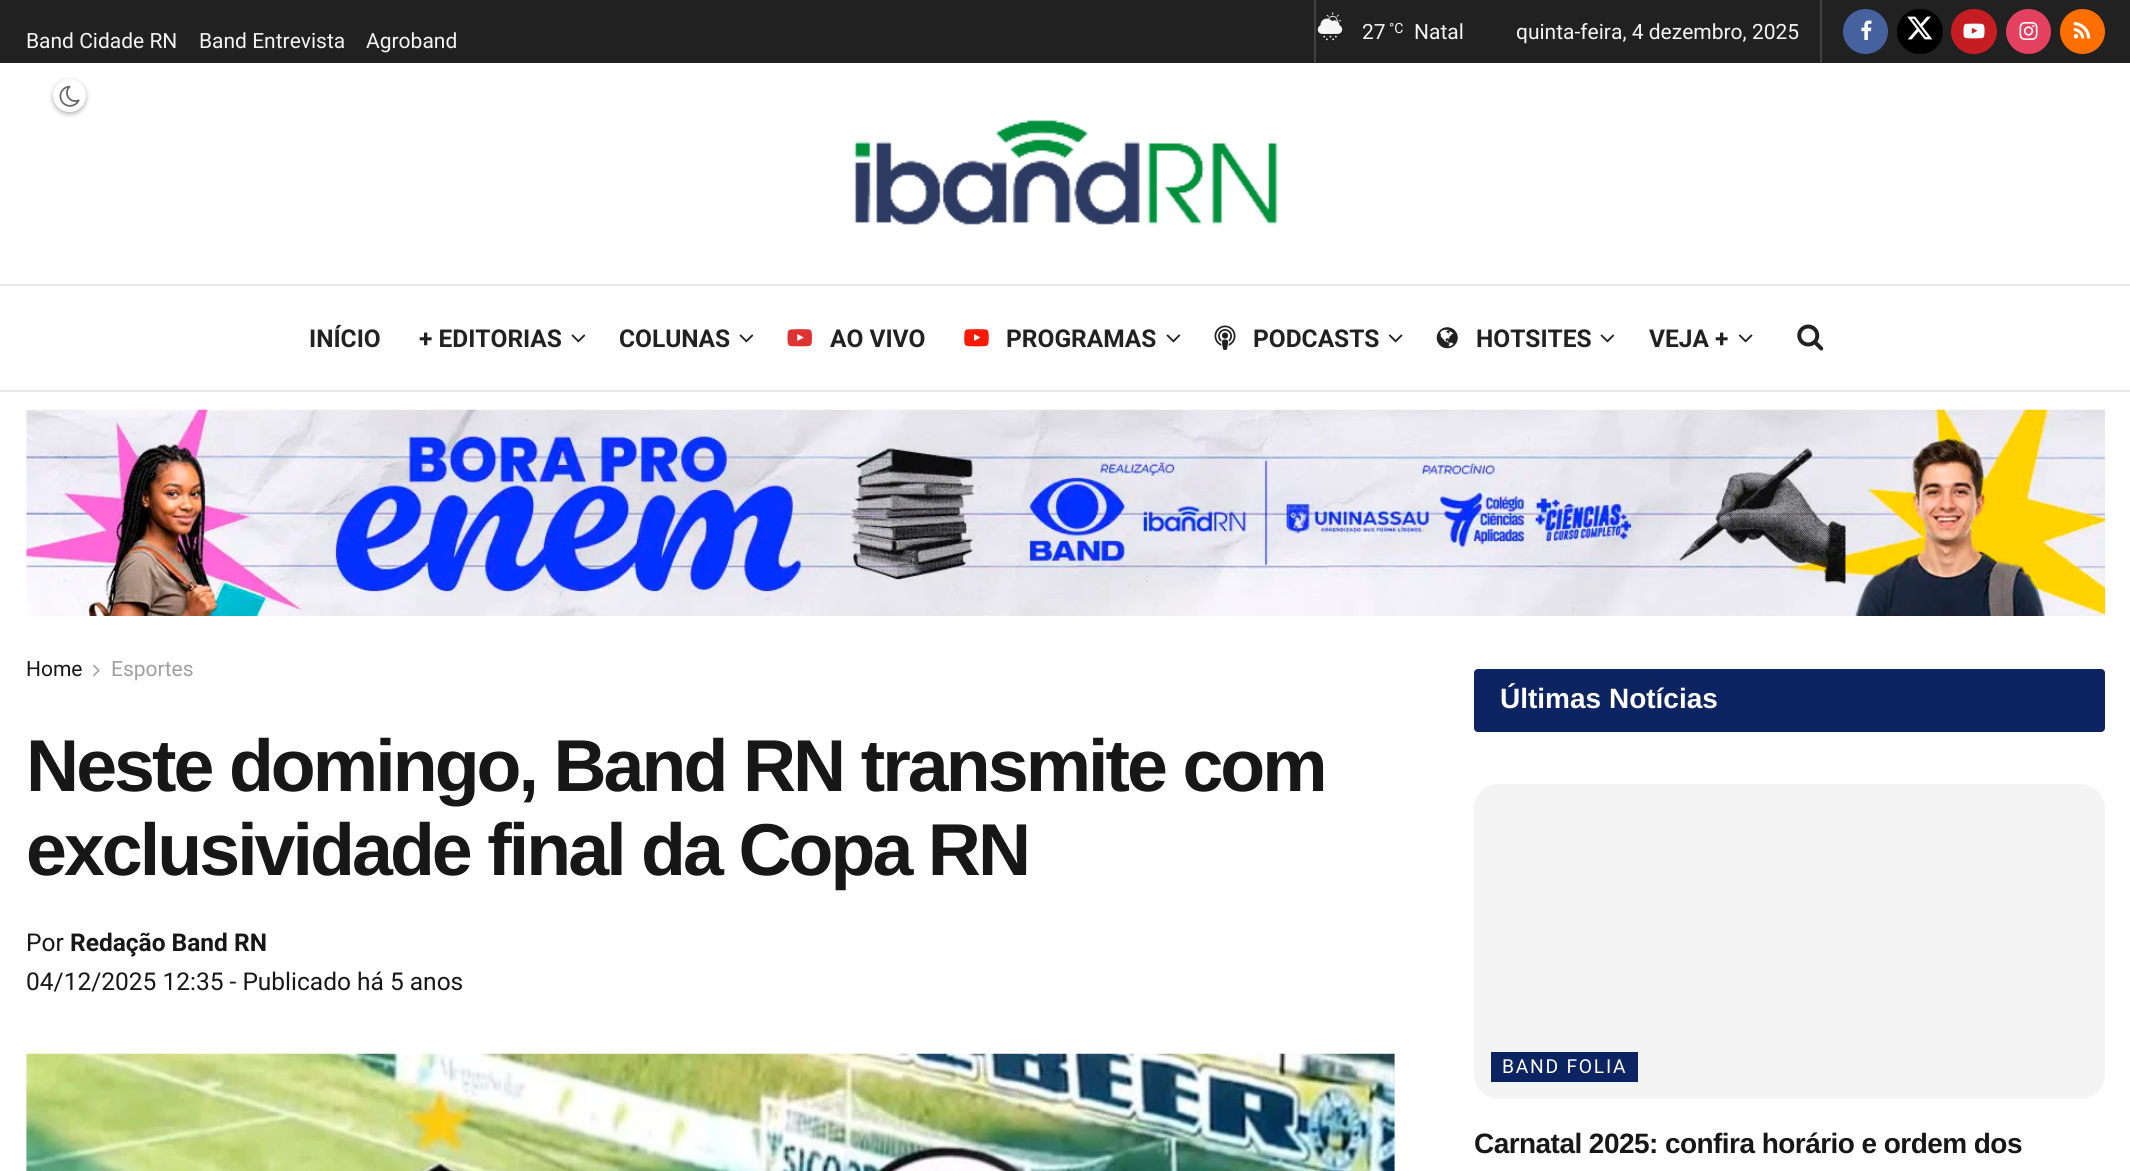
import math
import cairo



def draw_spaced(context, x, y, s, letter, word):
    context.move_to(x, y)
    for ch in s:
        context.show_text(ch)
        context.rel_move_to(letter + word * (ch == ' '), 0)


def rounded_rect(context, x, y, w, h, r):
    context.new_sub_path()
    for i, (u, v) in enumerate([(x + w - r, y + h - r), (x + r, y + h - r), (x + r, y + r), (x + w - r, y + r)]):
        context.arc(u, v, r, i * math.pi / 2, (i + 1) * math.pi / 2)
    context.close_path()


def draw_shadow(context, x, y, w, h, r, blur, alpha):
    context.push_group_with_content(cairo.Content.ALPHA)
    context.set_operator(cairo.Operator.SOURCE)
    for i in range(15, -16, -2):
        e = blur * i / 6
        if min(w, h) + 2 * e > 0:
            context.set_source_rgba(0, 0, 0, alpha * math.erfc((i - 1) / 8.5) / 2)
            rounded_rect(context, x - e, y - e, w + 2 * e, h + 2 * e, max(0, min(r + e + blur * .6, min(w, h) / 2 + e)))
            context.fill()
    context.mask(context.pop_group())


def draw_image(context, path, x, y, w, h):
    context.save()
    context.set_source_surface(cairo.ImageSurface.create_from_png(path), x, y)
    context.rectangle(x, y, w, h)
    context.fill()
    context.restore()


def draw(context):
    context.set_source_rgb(1, 1, 1)
    context.paint()
    context.set_source_rgb(33 / 255, 33 / 255, 33 / 255)
    context.rectangle(0, 0, 2130, 63)
    context.fill()
    context.set_source_rgb(66 / 255, 66 / 255, 66 / 255)
    context.rectangle(1314, 0, 2, 63)
    context.fill()
    context.set_source_rgb(0, 0, 0)
    draw_shadow(context, 53, 81, 33, 33, 16.5, 2.5, 0.3)
    context.set_source_rgb(1, 1, 1)
    context.arc(69.5, 95.5, 16.5, 0, 2 * math.pi)
    context.fill()
    draw_image(context, "images/1.png", 59, 85, 21, 22)
    draw_image(context, "images/2.png", 1317, 12, 26, 29)
    context.set_source_rgb(66 / 255, 66 / 255, 66 / 255)
    context.rectangle(1820, 0, 2, 63)
    context.fill()
    context.set_source_rgb(69 / 255, 98 / 255, 159 / 255)
    context.arc(1865.5, 31.5, 22.5, 0, 2 * math.pi)
    context.fill()
    draw_image(context, "images/3.png", 1861, 20, 11, 20)
    context.set_source_rgb(0, 0, 0)
    rounded_rect(context, 1897, 9, 46, 45, 22.5)
    context.fill()
    draw_image(context, "images/4.png", 1907, 16, 26, 24)
    context.set_source_rgb(198 / 255, 29 / 255, 35 / 255)
    rounded_rect(context, 1951, 9, 46, 45, 22.5)
    context.fill()
    draw_image(context, "images/5.png", 1963, 23, 22, 16)
    context.set_source_rgb(228 / 255, 64 / 255, 95 / 255)
    context.arc(2028.5, 31.5, 22.5, 0, 2 * math.pi)
    context.fill()
    draw_image(context, "images/6.png", 2019, 22, 19, 18)
    context.set_source_rgb(1, 111 / 255, 0)
    context.arc(2082.5, 31.5, 22.5, 0, 2 * math.pi)
    context.fill()
    draw_image(context, "images/7.png", 2073, 22, 18, 17)
    draw_image(context, "images/8.png", 854, 120, 424, 106)
    context.set_source_rgb(232 / 255, 232 / 255, 232 / 255)
    context.rectangle(0, 284, 2130, 2)
    context.fill()
    context.rectangle(0, 390, 2130, 2)
    context.fill()
    draw_image(context, "images/9.png", 571, 334, 15, 9)
    draw_image(context, "images/9.png", 739, 334, 15, 9)
    draw_image(context, "images/10.png", 787, 329, 25, 18)
    draw_image(context, "images/11.png", 964, 329, 25, 18)
    draw_image(context, "images/9.png", 1166, 334, 15, 9)
    draw_image(context, "images/12.png", 1214, 325, 22, 25)
    draw_image(context, "images/13.png", 1388, 334, 15, 9)
    draw_image(context, "images/14.png", 1436, 327, 22, 22)
    draw_image(context, "images/9.png", 1600, 334, 15, 9)
    draw_image(context, "images/13.png", 1738, 334, 15, 9)
    draw_image(context, "images/15.png", 1797, 324, 27, 27)
    draw_image(context, "images/16.png", 26, 409, 2080, 207)
    draw_image(context, "images/17.png", 93, 664, 7, 13)
    context.set_source_rgb(247 / 255, 247 / 255, 247 / 255)
    context.rectangle(26, 1054, 1369, 117)
    context.fill()
    draw_image(context, "images/18.png", 26, 1053, 1369, 118)
    context.set_source_rgb(12 / 255, 36 / 255, 97 / 255)
    rounded_rect(context, 1474, 669, 631, 63, 4)
    context.fill()
    draw_image(context, "images/19.png", 1474, 786, 14, 302)
    context.set_source_rgb(244 / 255, 244 / 255, 245 / 255)
    rounded_rect(context, 1474, 784, 631, 315, 25)
    context.fill()
    context.set_source_rgb(12 / 255, 36 / 255, 97 / 255)
    context.rectangle(1491, 1052, 147, 30)
    context.fill()
    context.select_font_face("Roboto")
    context.set_font_size(21)
    context.set_source_rgb(245 / 255, 245 / 255, 245 / 255)
    context.move_to(26, 48)
    context.show_text("Band Cidade RN")
    context.move_to(199, 48)
    context.show_text("Band Entrevista")
    context.move_to(366, 48)
    context.show_text("Agroband")
    context.move_to(1362, 39)
    context.show_text("27")
    context.set_font_size(14)
    context.move_to(1389, 33)
    context.show_text("°C")
    context.set_font_size(21)
    context.move_to(1414, 39)
    context.show_text("Natal")
    context.move_to(1516, 39)
    context.show_text("quinta-feira, 4 dezembro, 2025")
    context.select_font_face("Roboto", cairo.FontSlant.NORMAL, cairo.FontWeight.BOLD)
    context.set_font_size(24.5)
    context.set_source_rgb(33 / 255, 33 / 255, 33 / 255)
    context.move_to(309, 347)
    context.show_text("INÍCIO")
    context.move_to(419, 347)
    context.show_text("+ EDITORIAS")
    context.move_to(619, 347)
    context.show_text("COLUNAS")
    context.move_to(830, 347)
    context.show_text("AO VIVO")
    context.move_to(1006, 347)
    context.show_text("PROGRAMAS")
    context.move_to(1253, 347)
    context.show_text("PODCASTS")
    context.move_to(1476, 347)
    context.show_text("HOTSITES")
    context.move_to(1649, 347)
    context.show_text("VEJA +")
    context.select_font_face("Roboto")
    context.set_font_size(21)
    context.set_source_rgb(23 / 255, 23 / 255, 23 / 255)
    context.move_to(26, 676)
    context.show_text("Home")
    context.set_source_rgb(160 / 255, 160 / 255, 160 / 255)
    context.move_to(111, 676)
    context.show_text("Esportes")
    context.select_font_face("Liberation Sans", cairo.FontSlant.NORMAL, cairo.FontWeight.BOLD)
    context.set_font_size(73.5)
    context.set_source_rgb(23 / 255, 23 / 255, 23 / 255)
    draw_spaced(context, 26, 791, "Neste domingo, Band RN transmite com", -2.95, 0)
    draw_spaced(context, 26, 875, "exclusividade final da Copa RN", -2.95, 0)
    context.select_font_face("Roboto")
    context.set_font_size(24.5)
    context.move_to(26, 951)
    context.show_text("Por")
    context.select_font_face("Roboto", cairo.FontSlant.NORMAL, cairo.FontWeight.BOLD)
    context.move_to(70, 951)
    context.show_text("Redação Band RN")
    context.select_font_face("Roboto")
    context.move_to(26, 990)
    context.show_text("04/12/2025 12:35 - Publicado há 5 anos")
    context.select_font_face("Liberation Sans", cairo.FontSlant.NORMAL, cairo.FontWeight.BOLD)
    context.set_font_size(28)
    context.set_source_rgb(1, 1, 1)
    context.move_to(1500, 708)
    context.show_text("Últimas Notícias")
    context.select_font_face("Roboto")
    context.set_font_size(19.25)
    draw_spaced(context, 1502, 1073, "BAND FOLIA", 1.75, 0)
    context.select_font_face("Liberation Sans", cairo.FontSlant.NORMAL, cairo.FontWeight.BOLD)
    context.set_font_size(28)
    context.set_source_rgb(23 / 255, 23 / 255, 23 / 255)
    draw_spaced(context, 1474, 1153, "Carnatal 2025: confira horário e ordem dos", -0.55, 0)


surface = cairo.ImageSurface(cairo.Format.RGB24, 2130, 1171)
context = cairo.Context(surface)
options = cairo.FontOptions()
options.set_hint_metrics(cairo.HintMetrics.OFF)
options.set_hint_style(cairo.HintStyle.NONE)
context.set_font_options(options)
context.set_miter_limit(4)
draw(context)
surface.write_to_png("out.png")
